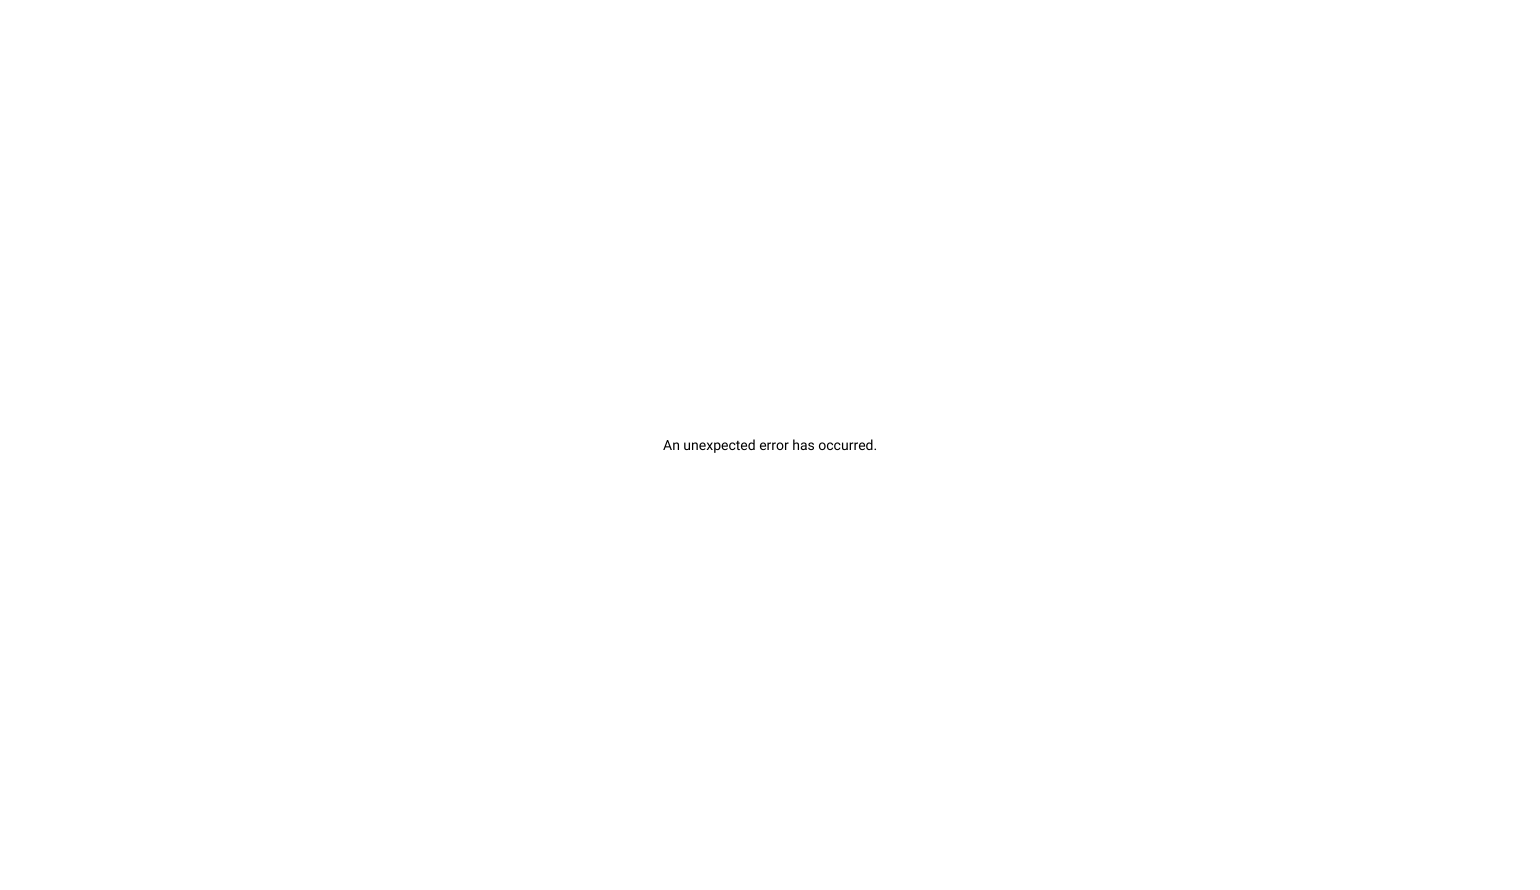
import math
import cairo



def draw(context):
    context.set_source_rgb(1, 1, 1)
    context.paint()
    context.select_font_face("Roboto")
    context.set_font_size(14)
    context.set_source_rgb(0, 0, 0)
    context.move_to(663, 450)
    context.show_text("An unexpected error has occurred.")


surface = cairo.ImageSurface(cairo.Format.RGB24, 1540, 890)
context = cairo.Context(surface)
options = cairo.FontOptions()
options.set_hint_metrics(cairo.HintMetrics.OFF)
options.set_hint_style(cairo.HintStyle.NONE)
context.set_font_options(options)
context.set_miter_limit(4)
draw(context)
surface.write_to_png("out.png")
